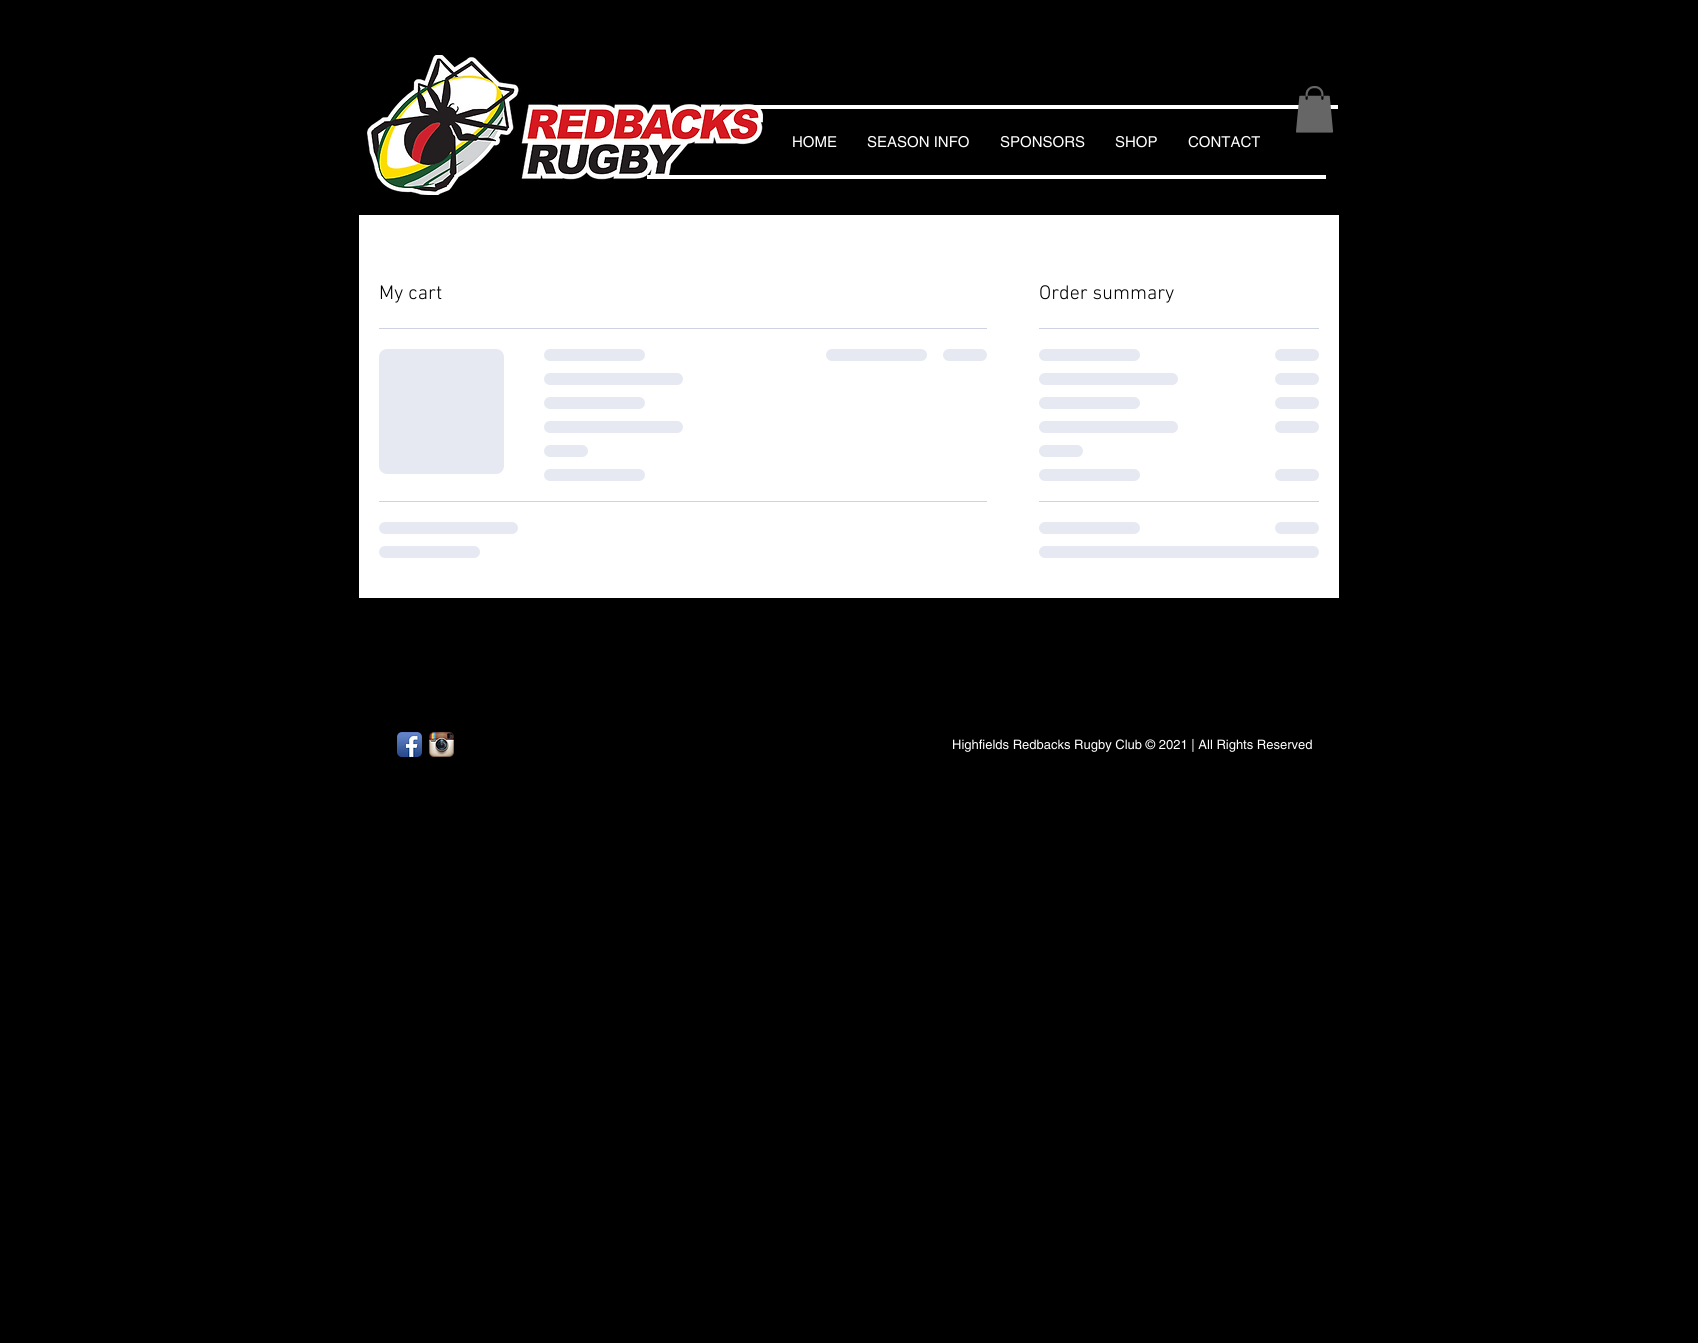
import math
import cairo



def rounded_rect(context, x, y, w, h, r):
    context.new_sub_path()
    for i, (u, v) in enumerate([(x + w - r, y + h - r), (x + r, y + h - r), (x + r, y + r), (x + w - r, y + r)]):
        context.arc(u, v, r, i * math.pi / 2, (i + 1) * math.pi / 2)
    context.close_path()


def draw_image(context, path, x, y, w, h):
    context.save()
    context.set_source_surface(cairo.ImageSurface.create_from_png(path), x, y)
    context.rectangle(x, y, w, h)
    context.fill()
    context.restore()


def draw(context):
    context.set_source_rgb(0, 0, 0)
    context.paint()
    context.set_source_rgb(1, 1, 1)
    context.rectangle(749, 105, 589, 4)
    context.fill()
    draw_image(context, "images/1.png", 1296, 86, 38, 47)
    context.rectangle(647, 175, 679, 4)
    context.fill()
    draw_image(context, "images/2.png", 367, 55, 396, 140)
    context.rectangle(359, 215, 980, 383)
    context.fill()
    context.set_source_rgb(205 / 255, 211 / 255, 227 / 255)
    context.rectangle(379, 328, 608, 1)
    context.fill()
    gradient = cairo.LinearGradient(379, 412, 879, 412)
    gradient.add_color_stop_rgba(0.25, 230 / 255, 233 / 255, 241 / 255, 1)
    gradient.add_color_stop_rgba(0.37, 205 / 255, 211 / 255, 227 / 255, 1)
    gradient.add_color_stop_rgba(0.63, 230 / 255, 233 / 255, 241 / 255, 1)
    context.set_source(gradient)
    rounded_rect(context, 379, 349, 125, 125, 8)
    context.fill()
    gradient = cairo.LinearGradient(544, 355, 948, 355)
    gradient.add_color_stop_rgba(0.25, 230 / 255, 233 / 255, 241 / 255, 1)
    gradient.add_color_stop_rgba(0.37, 205 / 255, 211 / 255, 227 / 255, 1)
    gradient.add_color_stop_rgba(0.63, 230 / 255, 233 / 255, 241 / 255, 1)
    context.set_source(gradient)
    rounded_rect(context, 544, 349, 101, 12, 6)
    context.fill()
    gradient = cairo.LinearGradient(544, 379, 1100, 379)
    gradient.add_color_stop_rgba(0.25, 230 / 255, 233 / 255, 241 / 255, 1)
    gradient.add_color_stop_rgba(0.37, 205 / 255, 211 / 255, 227 / 255, 1)
    gradient.add_color_stop_rgba(0.63, 230 / 255, 233 / 255, 241 / 255, 1)
    context.set_source(gradient)
    rounded_rect(context, 544, 373, 139, 12, 6)
    context.fill()
    gradient = cairo.LinearGradient(544, 403, 948, 403)
    gradient.add_color_stop_rgba(0.25, 230 / 255, 233 / 255, 241 / 255, 1)
    gradient.add_color_stop_rgba(0.37, 205 / 255, 211 / 255, 227 / 255, 1)
    gradient.add_color_stop_rgba(0.63, 230 / 255, 233 / 255, 241 / 255, 1)
    context.set_source(gradient)
    rounded_rect(context, 544, 397, 101, 12, 6)
    context.fill()
    gradient = cairo.LinearGradient(544, 427, 1100, 427)
    gradient.add_color_stop_rgba(0.25, 230 / 255, 233 / 255, 241 / 255, 1)
    gradient.add_color_stop_rgba(0.37, 205 / 255, 211 / 255, 227 / 255, 1)
    gradient.add_color_stop_rgba(0.63, 230 / 255, 233 / 255, 241 / 255, 1)
    context.set_source(gradient)
    rounded_rect(context, 544, 421, 139, 12, 6)
    context.fill()
    gradient = cairo.LinearGradient(544, 451, 720, 451)
    gradient.add_color_stop_rgba(0.25, 230 / 255, 233 / 255, 241 / 255, 1)
    gradient.add_color_stop_rgba(0.37, 205 / 255, 211 / 255, 227 / 255, 1)
    gradient.add_color_stop_rgba(0.63, 230 / 255, 233 / 255, 241 / 255, 1)
    context.set_source(gradient)
    rounded_rect(context, 544, 445, 44, 12, 6)
    context.fill()
    gradient = cairo.LinearGradient(544, 475, 948, 475)
    gradient.add_color_stop_rgba(0.25, 230 / 255, 233 / 255, 241 / 255, 1)
    gradient.add_color_stop_rgba(0.37, 205 / 255, 211 / 255, 227 / 255, 1)
    gradient.add_color_stop_rgba(0.63, 230 / 255, 233 / 255, 241 / 255, 1)
    context.set_source(gradient)
    rounded_rect(context, 544, 469, 101, 12, 6)
    context.fill()
    gradient = cairo.LinearGradient(826, 355, 1230, 355)
    gradient.add_color_stop_rgba(0.25, 230 / 255, 233 / 255, 241 / 255, 1)
    gradient.add_color_stop_rgba(0.37, 205 / 255, 211 / 255, 227 / 255, 1)
    gradient.add_color_stop_rgba(0.63, 230 / 255, 233 / 255, 241 / 255, 1)
    context.set_source(gradient)
    rounded_rect(context, 826, 349, 101, 12, 6)
    context.fill()
    gradient = cairo.LinearGradient(943, 355, 1119, 355)
    gradient.add_color_stop_rgba(0.25, 230 / 255, 233 / 255, 241 / 255, 1)
    gradient.add_color_stop_rgba(0.37, 205 / 255, 211 / 255, 227 / 255, 1)
    gradient.add_color_stop_rgba(0.63, 230 / 255, 233 / 255, 241 / 255, 1)
    context.set_source(gradient)
    rounded_rect(context, 943, 349, 44, 12, 6)
    context.fill()
    context.set_source_rgb(205 / 255, 211 / 255, 227 / 255)
    context.rectangle(379, 501, 608, 1)
    context.fill()
    gradient = cairo.LinearGradient(379, 528, 935, 528)
    gradient.add_color_stop_rgba(0.25, 230 / 255, 233 / 255, 241 / 255, 1)
    gradient.add_color_stop_rgba(0.37, 205 / 255, 211 / 255, 227 / 255, 1)
    gradient.add_color_stop_rgba(0.63, 230 / 255, 233 / 255, 241 / 255, 1)
    context.set_source(gradient)
    rounded_rect(context, 379, 522, 139, 12, 6)
    context.fill()
    gradient = cairo.LinearGradient(379, 552, 783, 552)
    gradient.add_color_stop_rgba(0.25, 230 / 255, 233 / 255, 241 / 255, 1)
    gradient.add_color_stop_rgba(0.37, 205 / 255, 211 / 255, 227 / 255, 1)
    gradient.add_color_stop_rgba(0.63, 230 / 255, 233 / 255, 241 / 255, 1)
    context.set_source(gradient)
    rounded_rect(context, 379, 546, 101, 12, 6)
    context.fill()
    context.set_source_rgb(205 / 255, 211 / 255, 227 / 255)
    context.rectangle(1039, 328, 280, 1)
    context.fill()
    gradient = cairo.LinearGradient(1039, 355, 1443, 355)
    gradient.add_color_stop_rgba(0.25, 230 / 255, 233 / 255, 241 / 255, 1)
    gradient.add_color_stop_rgba(0.37, 205 / 255, 211 / 255, 227 / 255, 1)
    gradient.add_color_stop_rgba(0.63, 230 / 255, 233 / 255, 241 / 255, 1)
    context.set_source(gradient)
    rounded_rect(context, 1039, 349, 101, 12, 6)
    context.fill()
    gradient = cairo.LinearGradient(1275, 355, 1451, 355)
    gradient.add_color_stop_rgba(0.25, 230 / 255, 233 / 255, 241 / 255, 1)
    gradient.add_color_stop_rgba(0.37, 205 / 255, 211 / 255, 227 / 255, 1)
    gradient.add_color_stop_rgba(0.63, 230 / 255, 233 / 255, 241 / 255, 1)
    context.set_source(gradient)
    rounded_rect(context, 1275, 349, 44, 12, 6)
    context.fill()
    gradient = cairo.LinearGradient(1039, 379, 1595, 379)
    gradient.add_color_stop_rgba(0.25, 230 / 255, 233 / 255, 241 / 255, 1)
    gradient.add_color_stop_rgba(0.37, 205 / 255, 211 / 255, 227 / 255, 1)
    gradient.add_color_stop_rgba(0.63, 230 / 255, 233 / 255, 241 / 255, 1)
    context.set_source(gradient)
    rounded_rect(context, 1039, 373, 139, 12, 6)
    context.fill()
    gradient = cairo.LinearGradient(1275, 379, 1451, 379)
    gradient.add_color_stop_rgba(0.25, 230 / 255, 233 / 255, 241 / 255, 1)
    gradient.add_color_stop_rgba(0.37, 205 / 255, 211 / 255, 227 / 255, 1)
    gradient.add_color_stop_rgba(0.63, 230 / 255, 233 / 255, 241 / 255, 1)
    context.set_source(gradient)
    rounded_rect(context, 1275, 373, 44, 12, 6)
    context.fill()
    gradient = cairo.LinearGradient(1039, 403, 1443, 403)
    gradient.add_color_stop_rgba(0.25, 230 / 255, 233 / 255, 241 / 255, 1)
    gradient.add_color_stop_rgba(0.37, 205 / 255, 211 / 255, 227 / 255, 1)
    gradient.add_color_stop_rgba(0.63, 230 / 255, 233 / 255, 241 / 255, 1)
    context.set_source(gradient)
    rounded_rect(context, 1039, 397, 101, 12, 6)
    context.fill()
    gradient = cairo.LinearGradient(1275, 403, 1451, 403)
    gradient.add_color_stop_rgba(0.25, 230 / 255, 233 / 255, 241 / 255, 1)
    gradient.add_color_stop_rgba(0.37, 205 / 255, 211 / 255, 227 / 255, 1)
    gradient.add_color_stop_rgba(0.63, 230 / 255, 233 / 255, 241 / 255, 1)
    context.set_source(gradient)
    rounded_rect(context, 1275, 397, 44, 12, 6)
    context.fill()
    gradient = cairo.LinearGradient(1039, 427, 1595, 427)
    gradient.add_color_stop_rgba(0.25, 230 / 255, 233 / 255, 241 / 255, 1)
    gradient.add_color_stop_rgba(0.37, 205 / 255, 211 / 255, 227 / 255, 1)
    gradient.add_color_stop_rgba(0.63, 230 / 255, 233 / 255, 241 / 255, 1)
    context.set_source(gradient)
    rounded_rect(context, 1039, 421, 139, 12, 6)
    context.fill()
    gradient = cairo.LinearGradient(1275, 427, 1451, 427)
    gradient.add_color_stop_rgba(0.25, 230 / 255, 233 / 255, 241 / 255, 1)
    gradient.add_color_stop_rgba(0.37, 205 / 255, 211 / 255, 227 / 255, 1)
    gradient.add_color_stop_rgba(0.63, 230 / 255, 233 / 255, 241 / 255, 1)
    context.set_source(gradient)
    rounded_rect(context, 1275, 421, 44, 12, 6)
    context.fill()
    gradient = cairo.LinearGradient(1039, 451, 1215, 451)
    gradient.add_color_stop_rgba(0.25, 230 / 255, 233 / 255, 241 / 255, 1)
    gradient.add_color_stop_rgba(0.37, 205 / 255, 211 / 255, 227 / 255, 1)
    gradient.add_color_stop_rgba(0.63, 230 / 255, 233 / 255, 241 / 255, 1)
    context.set_source(gradient)
    rounded_rect(context, 1039, 445, 44, 12, 6)
    context.fill()
    gradient = cairo.LinearGradient(1039, 475, 1443, 475)
    gradient.add_color_stop_rgba(0.25, 230 / 255, 233 / 255, 241 / 255, 1)
    gradient.add_color_stop_rgba(0.37, 205 / 255, 211 / 255, 227 / 255, 1)
    gradient.add_color_stop_rgba(0.63, 230 / 255, 233 / 255, 241 / 255, 1)
    context.set_source(gradient)
    rounded_rect(context, 1039, 469, 101, 12, 6)
    context.fill()
    gradient = cairo.LinearGradient(1275, 475, 1451, 475)
    gradient.add_color_stop_rgba(0.25, 230 / 255, 233 / 255, 241 / 255, 1)
    gradient.add_color_stop_rgba(0.37, 205 / 255, 211 / 255, 227 / 255, 1)
    gradient.add_color_stop_rgba(0.63, 230 / 255, 233 / 255, 241 / 255, 1)
    context.set_source(gradient)
    rounded_rect(context, 1275, 469, 44, 12, 6)
    context.fill()
    context.set_source_rgb(205 / 255, 211 / 255, 227 / 255)
    context.rectangle(1039, 501, 280, 1)
    context.fill()
    gradient = cairo.LinearGradient(1039, 528, 1443, 528)
    gradient.add_color_stop_rgba(0.25, 230 / 255, 233 / 255, 241 / 255, 1)
    gradient.add_color_stop_rgba(0.37, 205 / 255, 211 / 255, 227 / 255, 1)
    gradient.add_color_stop_rgba(0.63, 230 / 255, 233 / 255, 241 / 255, 1)
    context.set_source(gradient)
    rounded_rect(context, 1039, 522, 101, 12, 6)
    context.fill()
    gradient = cairo.LinearGradient(1275, 528, 1451, 528)
    gradient.add_color_stop_rgba(0.25, 230 / 255, 233 / 255, 241 / 255, 1)
    gradient.add_color_stop_rgba(0.37, 205 / 255, 211 / 255, 227 / 255, 1)
    gradient.add_color_stop_rgba(0.63, 230 / 255, 233 / 255, 241 / 255, 1)
    context.set_source(gradient)
    rounded_rect(context, 1275, 522, 44, 12, 6)
    context.fill()
    gradient = cairo.LinearGradient(1039, 552, 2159, 552)
    gradient.add_color_stop_rgba(0.25, 230 / 255, 233 / 255, 241 / 255, 1)
    gradient.add_color_stop_rgba(0.37, 205 / 255, 211 / 255, 227 / 255, 1)
    gradient.add_color_stop_rgba(0.63, 230 / 255, 233 / 255, 241 / 255, 1)
    context.set_source(gradient)
    rounded_rect(context, 1039, 546, 280, 12, 6)
    context.fill()
    draw_image(context, "images/3.png", 397, 732, 25, 25)
    draw_image(context, "images/4.png", 429, 732, 25, 25)
    context.select_font_face("helvetica")
    context.set_font_size(15)
    context.set_source_rgb(1, 1, 1)
    context.move_to(792, 147)
    context.show_text("HOME")
    context.move_to(867, 147)
    context.show_text("SEASON INFO")
    context.move_to(1000, 147)
    context.show_text("SPONSORS")
    context.move_to(1115, 147)
    context.show_text("SHOP")
    context.move_to(1188, 147)
    context.show_text("CONTACT")
    context.select_font_face("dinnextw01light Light")
    context.set_font_size(20)
    context.set_source_rgb(0, 0, 0)
    context.move_to(379, 299)
    context.show_text("My cart")
    context.move_to(1039, 299)
    context.show_text("Order summary")
    context.select_font_face("helvetica")
    context.set_font_size(13)
    context.set_source_rgb(1, 1, 1)
    context.move_to(952, 749)
    context.show_text("Highfields Redbacks Rugby Club © 2021 | All Rights Reserved")


surface = cairo.ImageSurface(cairo.Format.RGB24, 1698, 1343)
context = cairo.Context(surface)
options = cairo.FontOptions()
options.set_hint_metrics(cairo.HintMetrics.OFF)
options.set_hint_style(cairo.HintStyle.NONE)
context.set_font_options(options)
context.set_miter_limit(4)
draw(context)
surface.write_to_png("out.png")
